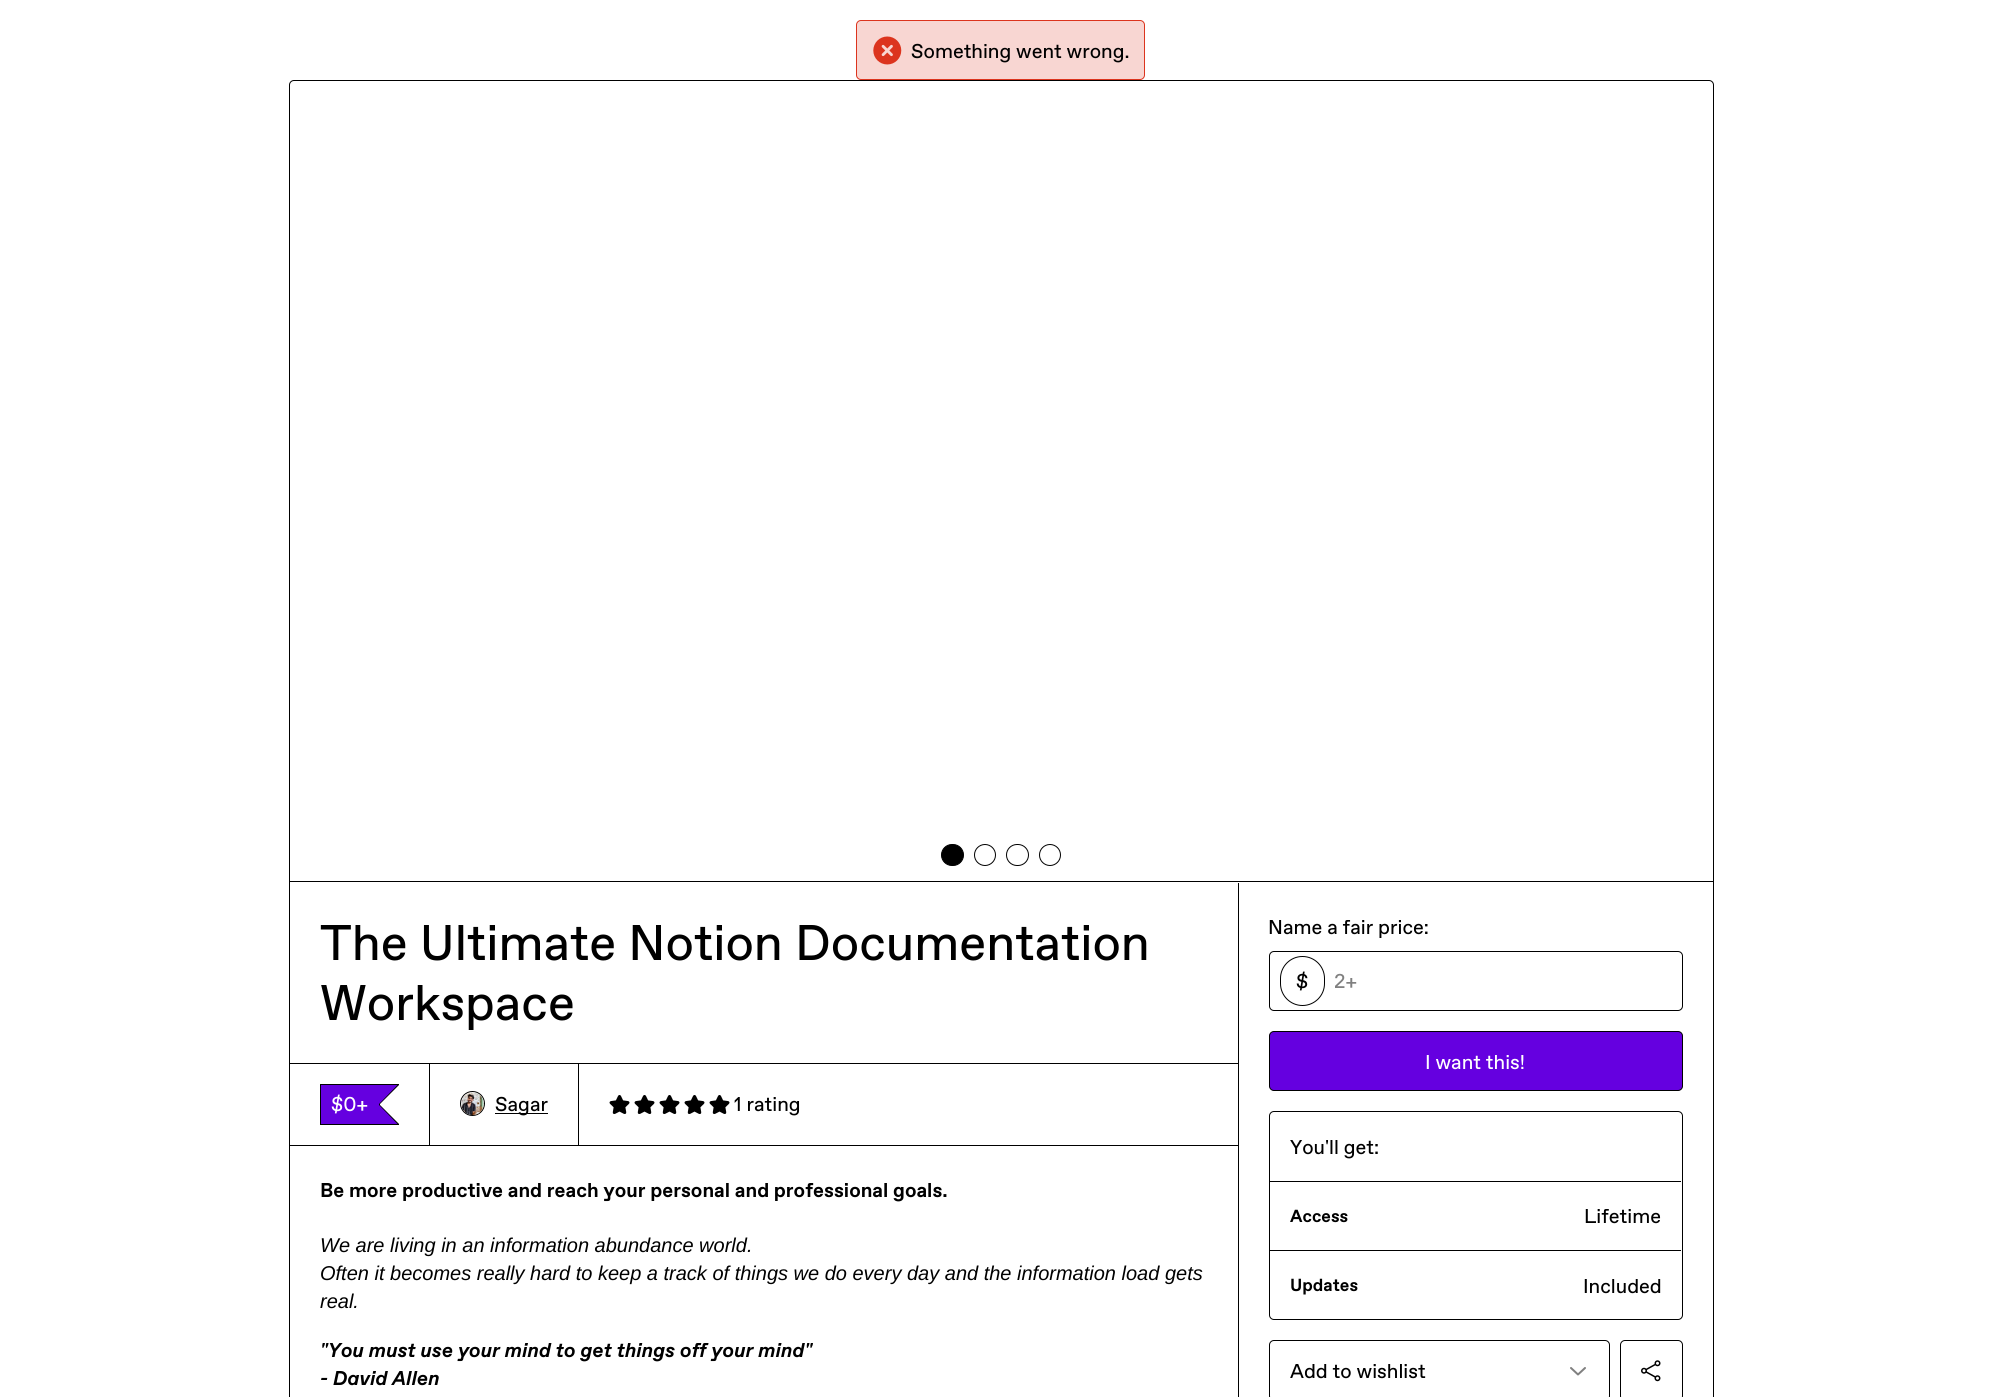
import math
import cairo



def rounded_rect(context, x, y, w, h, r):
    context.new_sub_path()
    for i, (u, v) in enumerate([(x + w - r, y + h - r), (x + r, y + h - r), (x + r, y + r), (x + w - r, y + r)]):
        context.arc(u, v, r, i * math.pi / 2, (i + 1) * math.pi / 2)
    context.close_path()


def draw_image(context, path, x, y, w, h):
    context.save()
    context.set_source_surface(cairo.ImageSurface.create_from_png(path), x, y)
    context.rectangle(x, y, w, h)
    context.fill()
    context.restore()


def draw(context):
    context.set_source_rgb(1, 1, 1)
    context.paint()
    context.set_source_rgb(248 / 255, 214 / 255, 210 / 255)
    rounded_rect(context, 856.5, 20.5, 288, 59, 4.5)
    context.fill_preserve()
    context.set_source_rgb(220 / 255, 52 / 255, 30 / 255)
    context.set_line_width(1)
    context.stroke()
    draw_image(context, "images/1.png", 873, 36, 29, 29)
    rounded_rect(context, 289.5, 80.5, 1424, 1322, 4.5)
    context.set_source_rgb(0, 0, 0)
    context.stroke()
    context.rectangle(290, 881, 1423, 1)
    context.fill()
    rounded_rect(context, 941.5, 844.5, 22, 21, 10.5)
    context.fill_preserve()
    context.stroke()
    context.arc(985, 855, 10.5, 0, 2 * math.pi)
    context.stroke()
    rounded_rect(context, 1006.5, 844.5, 22, 21, 10.5)
    context.stroke()
    context.arc(1050, 855, 10.5, 0, 2 * math.pi)
    context.stroke()
    context.rectangle(1238, 883, 1, 514)
    context.fill()
    context.rectangle(579, 1063, 659, 1)
    context.fill()
    context.rectangle(289.5, 1063.5, 140, 82)
    context.stroke()
    context.rectangle(320, 1084, 79, 1)
    context.fill()
    context.rectangle(320, 1124, 79, 1)
    context.fill()
    context.rectangle(320, 1084, 1, 41)
    context.fill()
    context.set_source_rgb(101 / 255, 0, 224 / 255)
    context.rectangle(321, 1085, 58, 39)
    context.fill()
    context.set_source_rgb(0, 0, 0)
    context.new_path()
    context.move_to(379, 1085)
    context.line_to(399, 1085)
    context.line_to(380, 1104)
    context.close_path()
    context.move_to(399, 1124)
    context.line_to(379, 1124)
    context.line_to(380, 1105)
    context.close_path()
    context.fill()
    context.rectangle(379, 1103, 1, 3)
    context.fill()
    context.set_source_rgb(101 / 255, 0, 224 / 255)
    context.new_path()
    context.move_to(377.5, 1085)
    context.line_to(397.5, 1085)
    context.line_to(379, 1104)
    context.close_path()
    context.move_to(397.5, 1124)
    context.line_to(377.5, 1124)
    context.line_to(379, 1105)
    context.close_path()
    context.fill()
    context.rectangle(429.5, 1063.5, 149, 82)
    context.set_source_rgb(0, 0, 0)
    context.stroke()
    context.arc(472.5, 1103.5, 12, 0, 2 * math.pi)
    context.stroke()
    draw_image(context, "images/2.png", 461, 1092, 23, 23)
    context.rectangle(495, 1113, 53, 1)
    context.fill()
    draw_image(context, "images/3.png", 609, 1095, 21, 19)
    draw_image(context, "images/3.png", 634, 1095, 21, 19)
    draw_image(context, "images/3.png", 659, 1095, 21, 19)
    draw_image(context, "images/3.png", 684, 1095, 21, 19)
    draw_image(context, "images/3.png", 709, 1095, 21, 19)
    context.rectangle(579, 1145, 659, 1)
    context.fill()
    rounded_rect(context, 1269.5, 951.5, 413, 59, 4.5)
    context.stroke()
    rounded_rect(context, 1280.5, 956.5, 44, 49, 22)
    context.stroke()
    context.set_source_rgb(101 / 255, 0, 224 / 255)
    rounded_rect(context, 1269.5, 1031.5, 413, 59, 4.5)
    context.fill_preserve()
    context.set_source_rgb(0, 0, 0)
    context.stroke()
    rounded_rect(context, 1269.5, 1111.5, 413, 208, 4.5)
    context.stroke()
    context.rectangle(1270, 1181, 411, 1)
    context.fill()
    context.rectangle(1270, 1250, 411, 1)
    context.fill()
    rounded_rect(context, 1269.5, 1340.5, 340, 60, 4.5)
    context.stroke()
    context.new_path()
    context.move_to(1585, 1368)
    context.line_to(1578, 1374.5)
    context.line_to(1571, 1368)
    context.set_source_rgb(128 / 255, 128 / 255, 128 / 255)
    context.set_line_width(2)
    context.set_line_cap(cairo.LineCap.ROUND)
    context.set_line_join(cairo.LineJoin.ROUND)
    context.stroke()
    rounded_rect(context, 1620.5, 1340.5, 62, 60, 4.5)
    context.set_source_rgb(0, 0, 0)
    context.set_line_width(1)
    context.set_line_cap(cairo.LineCap.BUTT)
    context.set_line_join(cairo.LineJoin.MITER)
    context.stroke()
    draw_image(context, "images/4.png", 1641, 1360, 20, 22)
    context.select_font_face("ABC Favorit")
    context.set_font_size(20)
    context.move_to(911, 58)
    context.show_text("Something went wrong.")
    context.set_font_size(50)
    context.move_to(320, 960)
    context.show_text("The Ultimate Notion Documentation")
    context.move_to(320, 1020)
    context.show_text("Workspace")
    context.set_font_size(20)
    context.set_source_rgb(1, 1, 1)
    context.move_to(331, 1111)
    context.show_text("$0+")
    context.set_source_rgb(0, 0, 0)
    context.move_to(495, 1111)
    context.show_text("Sagar")
    context.move_to(734, 1111)
    context.show_text("1 rating")
    context.select_font_face("ABC Favorit", cairo.FontSlant.NORMAL, cairo.FontWeight.BOLD)
    context.move_to(320, 1197)
    context.show_text("Be more productive and reach your personal and professional goals.")
    context.select_font_face("Liberation Sans", cairo.FontSlant.ITALIC)
    context.move_to(320, 1252)
    context.show_text("We are living in an information abundance world.")
    context.move_to(320, 1280)
    context.show_text("Often it becomes really hard to keep a track of things we do every day and the information load gets")
    context.move_to(320, 1308)
    context.show_text("real.")
    context.select_font_face("ABC Favorit", cairo.FontSlant.ITALIC, cairo.FontWeight.BOLD)
    context.move_to(320, 1357)
    context.show_text("\"You must use your mind to get things off your mind\"")
    context.move_to(320, 1385)
    context.show_text("- David Allen")
    context.select_font_face("ABC Favorit")
    context.move_to(1268, 934)
    context.show_text("Name a fair price:")
    context.move_to(1296, 988)
    context.show_text("$")
    context.set_source_rgb(128 / 255, 128 / 255, 128 / 255)
    context.move_to(1334, 988)
    context.show_text("2+")
    context.set_source_rgb(1, 1, 1)
    context.move_to(1425, 1069)
    context.show_text("I want this!")
    context.set_source_rgb(0, 0, 0)
    context.move_to(1290, 1154)
    context.show_text("You'll get:")
    context.select_font_face("ABC Favorit", cairo.FontSlant.NORMAL, cairo.FontWeight.BOLD)
    context.set_font_size(17.5)
    context.move_to(1290, 1222)
    context.show_text("Access")
    context.select_font_face("ABC Favorit")
    context.set_font_size(20)
    context.move_to(1584, 1223)
    context.show_text("Lifetime")
    context.select_font_face("ABC Favorit", cairo.FontSlant.NORMAL, cairo.FontWeight.BOLD)
    context.set_font_size(17.5)
    context.move_to(1290, 1291)
    context.show_text("Updates")
    context.select_font_face("ABC Favorit")
    context.set_font_size(20)
    context.move_to(1583, 1293)
    context.show_text("Included")
    context.move_to(1290, 1378)
    context.show_text("Add to wishlist")


surface = cairo.ImageSurface(cairo.Format.RGB24, 2002, 1397)
context = cairo.Context(surface)
options = cairo.FontOptions()
options.set_hint_metrics(cairo.HintMetrics.OFF)
options.set_hint_style(cairo.HintStyle.NONE)
context.set_font_options(options)
context.set_miter_limit(4)
draw(context)
surface.write_to_png("out.png")
